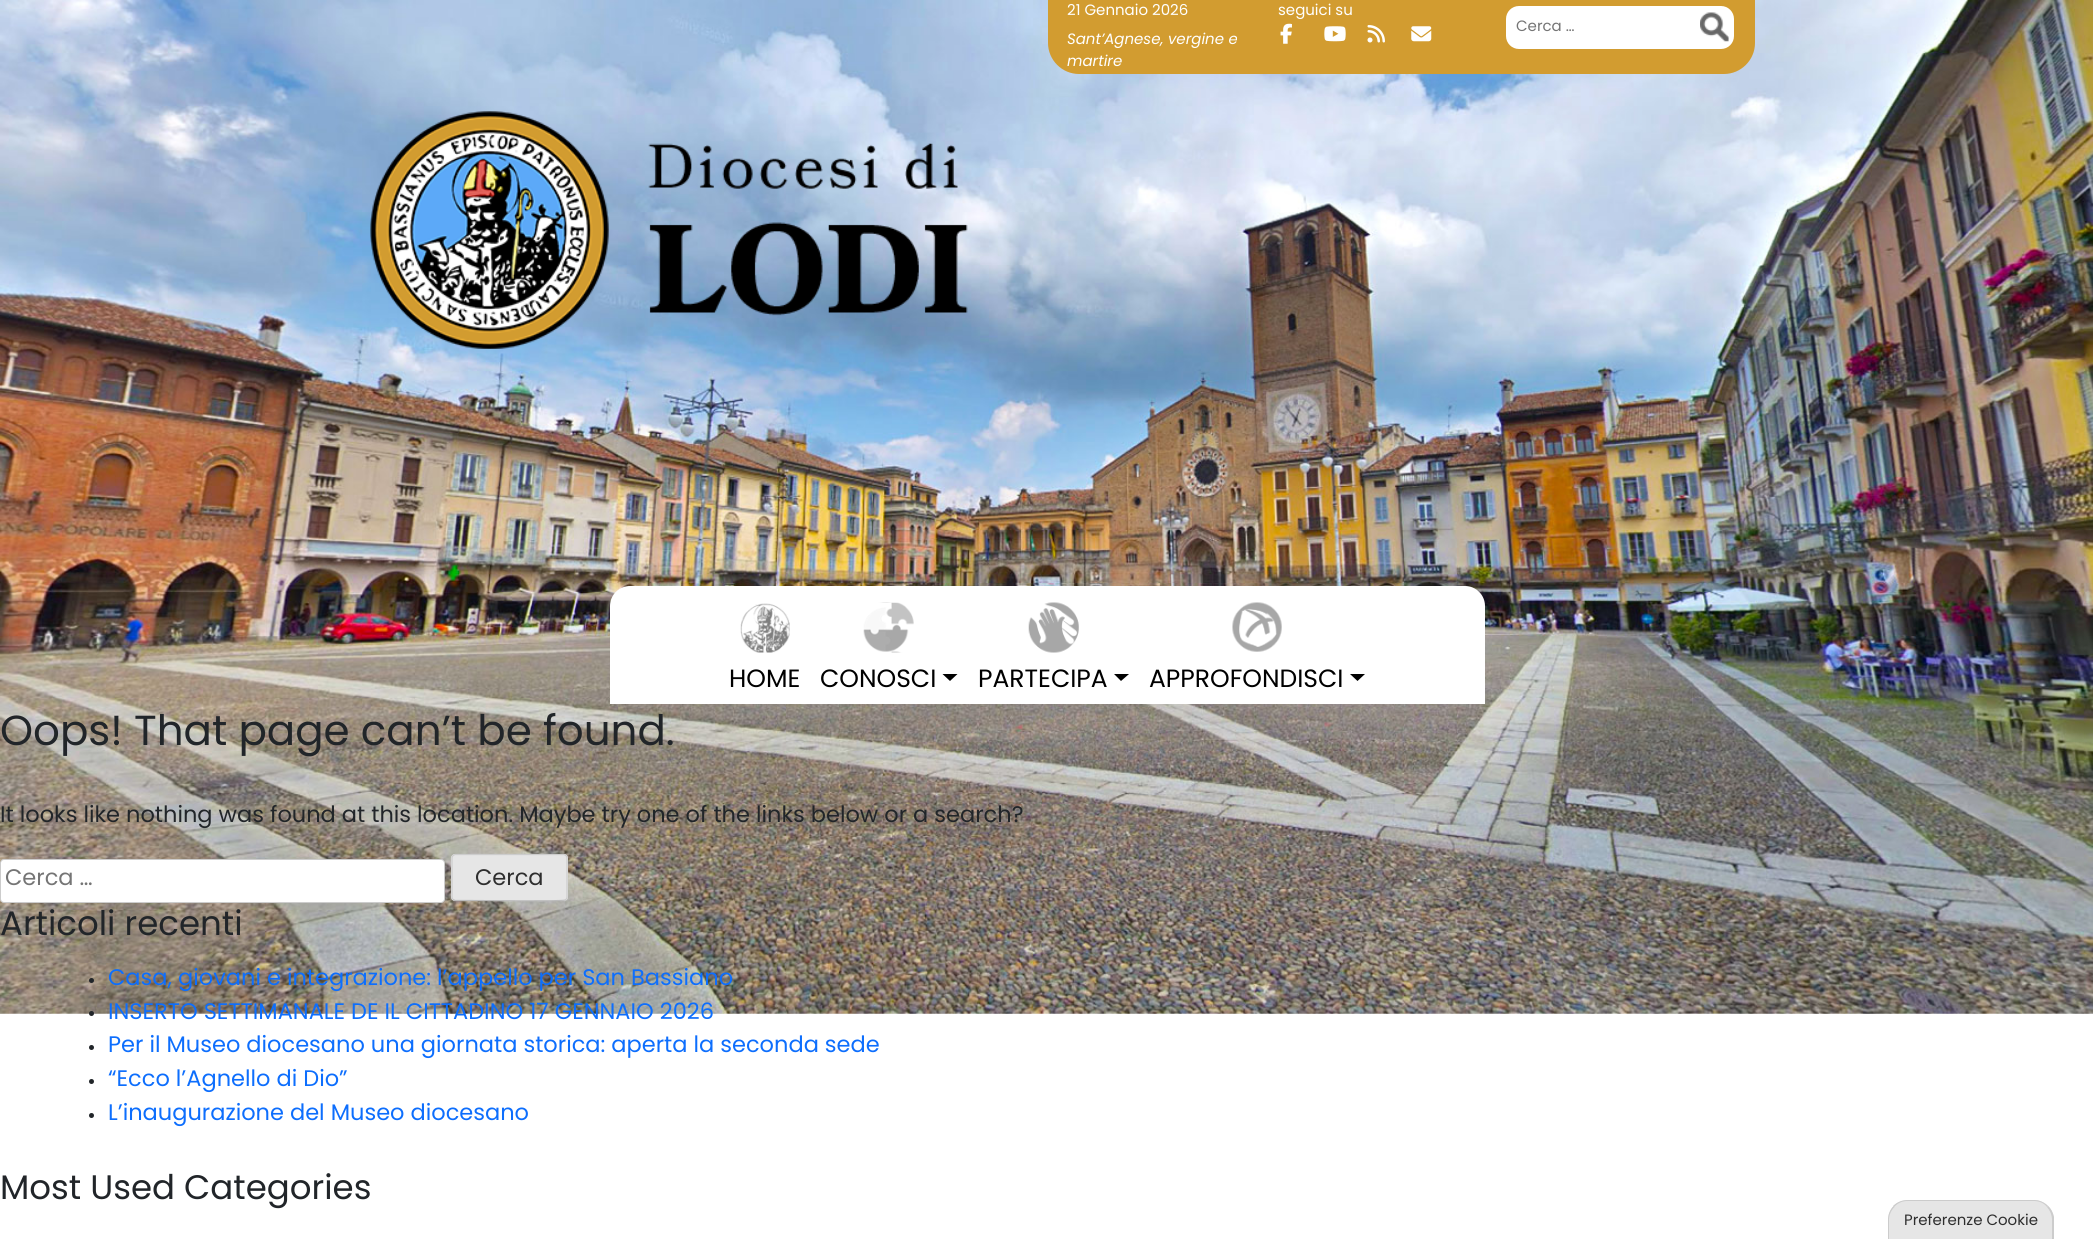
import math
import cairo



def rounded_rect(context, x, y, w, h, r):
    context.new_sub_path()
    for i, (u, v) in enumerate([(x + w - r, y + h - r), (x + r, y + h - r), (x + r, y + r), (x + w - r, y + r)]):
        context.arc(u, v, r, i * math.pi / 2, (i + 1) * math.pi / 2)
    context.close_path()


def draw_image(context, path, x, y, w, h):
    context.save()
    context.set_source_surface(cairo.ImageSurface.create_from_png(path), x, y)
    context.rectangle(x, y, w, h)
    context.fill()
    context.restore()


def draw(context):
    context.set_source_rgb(1, 1, 1)
    context.paint()
    draw_image(context, "images/1.png", 0, 0, 2093, 1014)
    context.set_source_rgb(210 / 255, 156 / 255, 48 / 255)
    context.new_path()
    context.move_to(1048, 0)
    context.line_to(1755, 0)
    context.line_to(1755, 43)
    context.curve_to(1755, 60, 1741, 74, 1724, 74)
    context.line_to(1079, 74)
    context.curve_to(1062, 74, 1048, 60, 1048, 43)
    context.close_path()
    context.fill()
    draw_image(context, "images/2.png", 1280, 23, 12, 21)
    draw_image(context, "images/3.png", 1324, 26, 22, 16)
    draw_image(context, "images/4.png", 1367, 25, 18, 18)
    draw_image(context, "images/5.png", 1411, 26, 21, 16)
    context.set_source_rgb(1, 1, 1)
    rounded_rect(context, 1506, 6, 228, 43, 13)
    context.fill()
    draw_image(context, "images/6.png", 1700, 12, 29, 30)
    draw_image(context, "images/7.png", 370, 111, 598, 238)
    context.new_path()
    context.move_to(630, 586)
    context.line_to(1465, 586)
    context.curve_to(1476, 586, 1485, 595, 1485, 606)
    context.line_to(1485, 704)
    context.line_to(610, 704)
    context.line_to(610, 606)
    context.curve_to(610, 595, 619, 586, 630, 586)
    context.close_path()
    context.fill()
    draw_image(context, "images/8.png", 740, 603, 50, 50)
    draw_image(context, "images/9.png", 863, 602, 51, 51)
    context.set_source_rgb(0, 0, 0)
    context.new_path()
    context.move_to(942.5, 674)
    context.line_to(957.5, 674)
    context.line_to(950, 681)
    context.close_path()
    context.fill()
    draw_image(context, "images/10.png", 1028, 602, 51, 51)
    context.new_path()
    context.move_to(1114, 674)
    context.line_to(1129, 674)
    context.line_to(1121, 681)
    context.close_path()
    context.fill()
    draw_image(context, "images/11.png", 1232, 602, 50, 50)
    context.new_path()
    context.move_to(1350, 674)
    context.line_to(1365, 674)
    context.line_to(1357.5, 681)
    context.close_path()
    context.fill()
    context.set_source_rgb(1, 1, 1)
    rounded_rect(context, 0.5, 859.5, 444, 43, 3.5)
    context.fill_preserve()
    context.set_source_rgb(204 / 255, 204 / 255, 204 / 255)
    context.set_line_width(1)
    context.stroke()
    context.set_source_rgb(230 / 255, 230 / 255, 230 / 255)
    rounded_rect(context, 451, 854, 117, 47, 4)
    context.fill()
    context.new_path()
    context.move_to(566, 899.5)
    context.line_to(565.5, 900)
    context.curve_to(563, 901.5, 482.5, 900.5, 473, 900.5)
    context.line_to(455, 900.5)
    context.line_to(453, 899.5)
    context.set_source_rgb(187 / 255, 187 / 255, 187 / 255)
    context.set_line_width(1.2)
    context.stroke()
    context.new_path()
    context.move_to(453, 899.5)
    context.line_to(452, 897.5)
    context.line_to(452, 857.5)
    context.line_to(453, 855.5)
    context.line_to(455, 854.5)
    context.line_to(564, 854.5)
    context.line_to(566, 855.5)
    context.line_to(567, 857.5)
    context.line_to(567, 897.5)
    context.line_to(566, 899.5)
    context.set_source_rgb(204 / 255, 204 / 255, 204 / 255)
    context.stroke()
    context.set_source_rgb(33 / 255, 37 / 255, 41 / 255)
    context.arc(91.5, 980.5, 2.5, 0, 2 * math.pi)
    context.fill()
    context.arc(91.5, 1013.5, 2.5, 0, 2 * math.pi)
    context.fill()
    context.arc(91.5, 1047.5, 2.5, 0, 2 * math.pi)
    context.fill()
    context.arc(91.5, 1081.5, 2.5, 0, 2 * math.pi)
    context.fill()
    context.arc(91.5, 1115.5, 2.5, 0, 2 * math.pi)
    context.fill()
    context.set_source_rgb(230 / 255, 230 / 255, 230 / 255)
    context.new_path()
    context.move_to(1908, 1200)
    context.line_to(2034, 1200)
    context.curve_to(2045, 1200, 2054, 1209, 2054, 1220)
    context.line_to(2054, 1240)
    context.line_to(1888, 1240)
    context.line_to(1888, 1220)
    context.curve_to(1888, 1209, 1897, 1200, 1908, 1200)
    context.close_path()
    context.fill()
    context.set_source_rgb(204 / 255, 204 / 255, 204 / 255)
    context.new_path()
    context.move_to(1908, 1200)
    context.curve_to(1902, 1200, 1897, 1202, 1893, 1206)
    context.line_to(1894, 1207)
    context.curve_to(1898, 1203, 1902, 1201, 1908, 1201)
    context.line_to(2034, 1201)
    context.curve_to(2039, 1201, 2044, 1203, 2047, 1207)
    context.line_to(2048, 1206)
    context.curve_to(2044, 1202, 2039, 1200, 2034, 1200)
    context.close_path()
    context.fill()
    context.new_path()
    context.move_to(2054, 1217)
    context.line_to(2054, 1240)
    context.line_to(2052, 1238)
    context.line_to(2052, 1220)
    context.curve_to(2052, 1215, 2050, 1210.5, 2047, 1207)
    context.line_to(2048, 1206)
    context.curve_to(2051, 1208.5, 2053, 1212.5, 2054, 1217)
    context.close_path()
    context.fill()
    context.set_source_rgb(187 / 255, 187 / 255, 187 / 255)
    context.new_path()
    context.move_to(2054, 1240)
    context.line_to(2052, 1238)
    context.line_to(2052, 1239)
    context.line_to(1889, 1239)
    context.line_to(1889, 1238)
    context.line_to(1888, 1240)
    context.close_path()
    context.fill()
    context.set_source_rgb(204 / 255, 204 / 255, 204 / 255)
    context.new_path()
    context.move_to(1893.5, 1206)
    context.curve_to(1890, 1209.5, 1888, 1214.5, 1888, 1220)
    context.line_to(1888, 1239.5)
    context.line_to(1889, 1238.5)
    context.line_to(1889, 1220)
    context.curve_to(1889, 1215, 1891, 1210.5, 1894.5, 1207)
    context.close_path()
    context.fill()
    context.select_font_face("Poppins")
    context.set_font_size(15)
    context.set_source_rgb(1, 1, 1)
    context.move_to(1067, 15)
    context.show_text("21 Gennaio 2026")
    context.select_font_face("Poppins", cairo.FontSlant.ITALIC)
    context.move_to(1067, 44)
    context.show_text("Sant’Agnese, vergine e")
    context.move_to(1067, 66)
    context.show_text("martire")
    context.select_font_face("Poppins")
    context.move_to(1278, 15)
    context.show_text("seguici su")
    context.set_source_rgb(117 / 255, 117 / 255, 117 / 255)
    context.move_to(1516, 31)
    context.show_text("Cerca …")
    context.set_font_size(25)
    context.set_source_rgb(0, 0, 0)
    context.move_to(729, 687)
    context.show_text("HOME")
    context.move_to(820, 687)
    context.show_text("CONOSCI")
    context.move_to(978, 687)
    context.show_text("PARTECIPA")
    context.move_to(1149, 687)
    context.show_text("APPROFONDISCI")
    context.set_font_size(42)
    context.set_source_rgb(33 / 255, 37 / 255, 41 / 255)
    context.move_to(0, 745)
    context.show_text("Oops! That page can’t be found.")
    context.set_font_size(22.5)
    context.move_to(0, 822)
    context.show_text("It looks like nothing was found at this location. Maybe try one of the links below or a search?")
    context.set_source_rgb(117 / 255, 117 / 255, 117 / 255)
    context.move_to(5, 885)
    context.show_text("Cerca …")
    context.set_source_rgb(46 / 255, 46 / 255, 46 / 255)
    context.move_to(475, 885)
    context.show_text("Cerca")
    context.set_font_size(34)
    context.set_source_rgb(33 / 255, 37 / 255, 41 / 255)
    context.move_to(0, 935)
    context.show_text("Articoli recenti")
    context.set_font_size(22.5)
    context.set_source_rgb(13 / 255, 110 / 255, 253 / 255)
    context.move_to(108, 985)
    context.show_text("Casa, giovani e integrazione: l’appello per San Bassiano")
    context.move_to(108, 1019)
    context.show_text("INSERTO SETTIMANALE DE IL CITTADINO 17 GENNAIO 2026")
    context.move_to(108, 1052)
    context.show_text("Per il Museo diocesano una giornata storica: aperta la seconda sede")
    context.move_to(108, 1086)
    context.show_text("“Ecco l’Agnello di Dio”")
    context.move_to(108, 1120)
    context.show_text("L’inaugurazione del Museo diocesano")
    context.set_font_size(34)
    context.set_source_rgb(33 / 255, 37 / 255, 41 / 255)
    context.move_to(0, 1199)
    context.show_text("Most Used Categories")
    context.set_font_size(15)
    context.set_source_rgb(46 / 255, 46 / 255, 46 / 255)
    context.move_to(1904, 1225)
    context.show_text("Preferenze Cookie")


surface = cairo.ImageSurface(cairo.Format.RGB24, 2093, 1239)
context = cairo.Context(surface)
options = cairo.FontOptions()
options.set_hint_metrics(cairo.HintMetrics.OFF)
options.set_hint_style(cairo.HintStyle.NONE)
context.set_font_options(options)
context.set_miter_limit(4)
draw(context)
surface.write_to_png("out.png")
